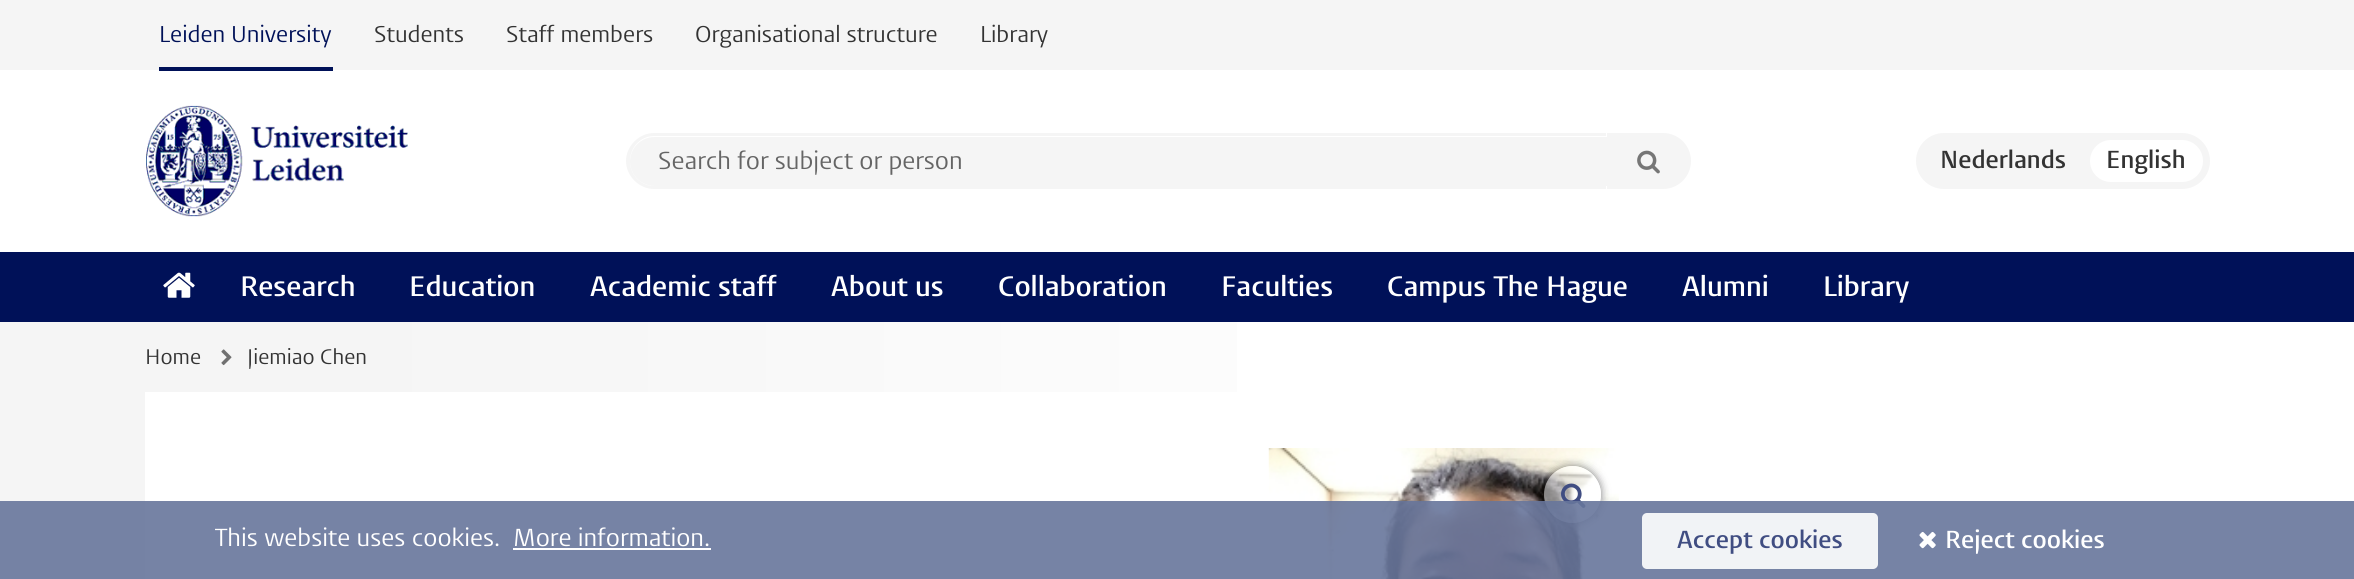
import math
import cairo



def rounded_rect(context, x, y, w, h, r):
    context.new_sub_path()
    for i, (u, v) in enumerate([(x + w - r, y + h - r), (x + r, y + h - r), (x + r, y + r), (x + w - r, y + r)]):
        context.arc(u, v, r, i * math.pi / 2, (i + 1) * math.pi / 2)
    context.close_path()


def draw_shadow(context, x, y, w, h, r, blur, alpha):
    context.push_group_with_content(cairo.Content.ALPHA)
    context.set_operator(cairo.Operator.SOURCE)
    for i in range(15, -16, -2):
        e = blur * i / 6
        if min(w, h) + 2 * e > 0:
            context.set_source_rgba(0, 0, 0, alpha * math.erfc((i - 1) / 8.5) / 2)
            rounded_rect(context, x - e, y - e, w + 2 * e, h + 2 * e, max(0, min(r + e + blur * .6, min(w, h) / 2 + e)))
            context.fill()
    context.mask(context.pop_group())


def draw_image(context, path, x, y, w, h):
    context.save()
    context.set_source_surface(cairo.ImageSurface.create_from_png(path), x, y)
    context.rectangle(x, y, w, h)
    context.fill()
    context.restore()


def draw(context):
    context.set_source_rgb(1, 1, 1)
    context.paint()
    gradient = cairo.LinearGradient(0, 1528, 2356, 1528)
    gradient.add_color_stop_rgba(0, 245 / 255, 245 / 255, 245 / 255, 1)
    gradient.add_color_stop_rgba(0.15, 245 / 255, 245 / 255, 245 / 255, 1)
    gradient.add_color_stop_rgba(0.65, 1, 1, 1, 1)
    context.set_source(gradient)
    context.rectangle(0, 322, 1237, 257)
    context.fill()
    context.set_source_rgb(245 / 255, 245 / 255, 245 / 255)
    context.rectangle(0, 0, 2354, 70)
    context.fill()
    context.set_source_rgb(0, 17 / 255, 88 / 255)
    context.rectangle(159, 67, 174, 4)
    context.fill()
    draw_image(context, "images/1.png", 146, 105, 262, 112)
    context.set_source_rgb(245 / 255, 245 / 255, 245 / 255)
    context.new_path()
    context.move_to(654.5, 137)
    context.line_to(1607, 137)
    context.line_to(1607, 186)
    context.line_to(654.5, 186)
    context.curve_to(641, 186, 630, 175, 630, 161.5)
    context.curve_to(630, 148, 641, 137, 654.5, 137)
    context.close_path()
    context.fill()
    context.set_fill_rule(cairo.FillRule.EVEN_ODD)
    context.new_path()
    context.move_to(654, 133)
    context.line_to(1606, 133)
    context.line_to(1606, 189)
    context.line_to(654, 189)
    context.curve_to(639, 189, 626, 176, 626, 161)
    context.curve_to(626, 146, 639, 133, 654, 133)
    context.close_path()
    context.move_to(654, 136)
    context.line_to(1606, 136)
    context.line_to(1606, 186)
    context.line_to(654, 186)
    context.curve_to(641, 186, 630, 175, 630, 161)
    context.curve_to(630, 147, 641, 136, 654, 136)
    context.close_path()
    context.fill()
    context.new_path()
    context.move_to(1607, 133)
    context.line_to(1663, 133)
    context.curve_to(1678.5, 133, 1691, 145.5, 1691, 161)
    context.curve_to(1691, 176.5, 1678.5, 189, 1663, 189)
    context.line_to(1607, 189)
    context.close_path()
    context.fill()
    draw_image(context, "images/2.png", 1637, 150, 23, 24)
    rounded_rect(context, 1916, 133, 294, 56, 28)
    context.fill()
    context.set_source_rgb(1, 1, 1)
    rounded_rect(context, 2090, 140, 113, 42, 21)
    context.fill()
    context.set_source_rgb(0, 17 / 255, 88 / 255)
    context.rectangle(0, 252, 2354, 70)
    context.fill()
    draw_image(context, "images/3.png", 163, 272, 32, 26)
    draw_image(context, "images/4.png", 221, 349, 11, 17)
    context.set_source_rgb(1, 1, 1)
    context.rectangle(145, 392, 1092, 187)
    context.fill()
    draw_image(context, "images/5.png", 1268, 448, 351, 131)
    context.save()
    context.new_path()
    context.move_to(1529, 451)
    context.line_to(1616, 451)
    context.line_to(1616, 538)
    context.line_to(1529, 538)
    context.close_path()
    context.move_to(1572.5, 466)
    context.curve_to(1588, 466, 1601, 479, 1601, 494.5)
    context.curve_to(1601, 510, 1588, 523, 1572.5, 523)
    context.curve_to(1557, 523, 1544, 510, 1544, 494.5)
    context.curve_to(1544, 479, 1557, 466, 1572.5, 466)
    context.close_path()
    context.clip()
    context.set_source_rgb(0, 0, 0)
    draw_shadow(context, 1544, 466, 57, 57, 28.5, 4.5, 0.5)
    context.restore()
    context.set_source_rgba(1, 1, 1, 0.5)
    context.arc(1572.5, 494.5, 28.5, 0, 2 * math.pi)
    context.fill()
    draw_image(context, "images/6.png", 1561, 483, 25, 25)
    context.set_source_rgba(104 / 255, 118 / 255, 156 / 255, 0.9)
    context.rectangle(0, 501, 2354, 78)
    context.fill()
    context.set_source_rgb(1, 1, 1)
    context.rectangle(513, 548, 198, 2)
    context.fill()
    context.set_source_rgb(241 / 255, 243 / 255, 246 / 255)
    rounded_rect(context, 1642, 513, 236, 56, 5)
    context.fill()
    draw_image(context, "images/7.png", 1919, 531, 17, 18)
    context.select_font_face("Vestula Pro")
    context.set_font_size(22.75)
    context.set_source_rgb(0, 17 / 255, 88 / 255)
    context.move_to(159, 42)
    context.show_text("Leiden University")
    context.set_source_rgb(51 / 255, 51 / 255, 51 / 255)
    context.move_to(374, 42)
    context.show_text("Students")
    context.move_to(506, 42)
    context.show_text("Staff members")
    context.move_to(695, 42)
    context.show_text("Organisational structure")
    context.move_to(980, 42)
    context.show_text("Library")
    context.set_font_size(24.5)
    context.set_source_rgb(101 / 255, 101 / 255, 101 / 255)
    context.move_to(658, 169)
    context.show_text("Search for subject or person")
    context.select_font_face("Vestula Pro SemiBold")
    context.set_source_rgb(51 / 255, 51 / 255, 51 / 255)
    context.move_to(1940, 168)
    context.show_text("Nederlands")
    context.move_to(2106, 168)
    context.show_text("English")
    context.set_font_size(28)
    context.set_source_rgb(1, 1, 1)
    context.move_to(240, 296)
    context.show_text("Research")
    context.move_to(409, 296)
    context.show_text("Education")
    context.move_to(590, 296)
    context.show_text("Academic staff")
    context.move_to(831, 296)
    context.show_text("About us")
    context.move_to(998, 296)
    context.show_text("Collaboration")
    context.move_to(1221, 296)
    context.show_text("Faculties")
    context.move_to(1387, 296)
    context.show_text("Campus The Hague")
    context.move_to(1682, 296)
    context.show_text("Alumni")
    context.move_to(1823, 296)
    context.show_text("Library")
    context.select_font_face("Vestula Pro")
    context.set_font_size(21)
    context.set_source_rgb(51 / 255, 51 / 255, 51 / 255)
    context.move_to(145, 364)
    context.show_text("Home")
    context.move_to(247, 364)
    context.show_text("Jiemiao Chen")
    context.set_font_size(24.5)
    context.set_source_rgb(1, 1, 1)
    context.move_to(215, 546)
    context.show_text("This website uses cookies.")
    context.move_to(513, 546)
    context.show_text("More information.")
    context.select_font_face("Vestula Pro SemiBold")
    context.set_source_rgb(64 / 255, 77 / 255, 130 / 255)
    context.move_to(1677, 548)
    context.show_text("Accept cookies")
    context.set_source_rgb(1, 1, 1)
    context.move_to(1945, 548)
    context.show_text("Reject cookies")


surface = cairo.ImageSurface(cairo.Format.RGB24, 2354, 579)
context = cairo.Context(surface)
options = cairo.FontOptions()
options.set_hint_metrics(cairo.HintMetrics.OFF)
options.set_hint_style(cairo.HintStyle.NONE)
context.set_font_options(options)
context.set_miter_limit(4)
draw(context)
surface.write_to_png("out.png")
